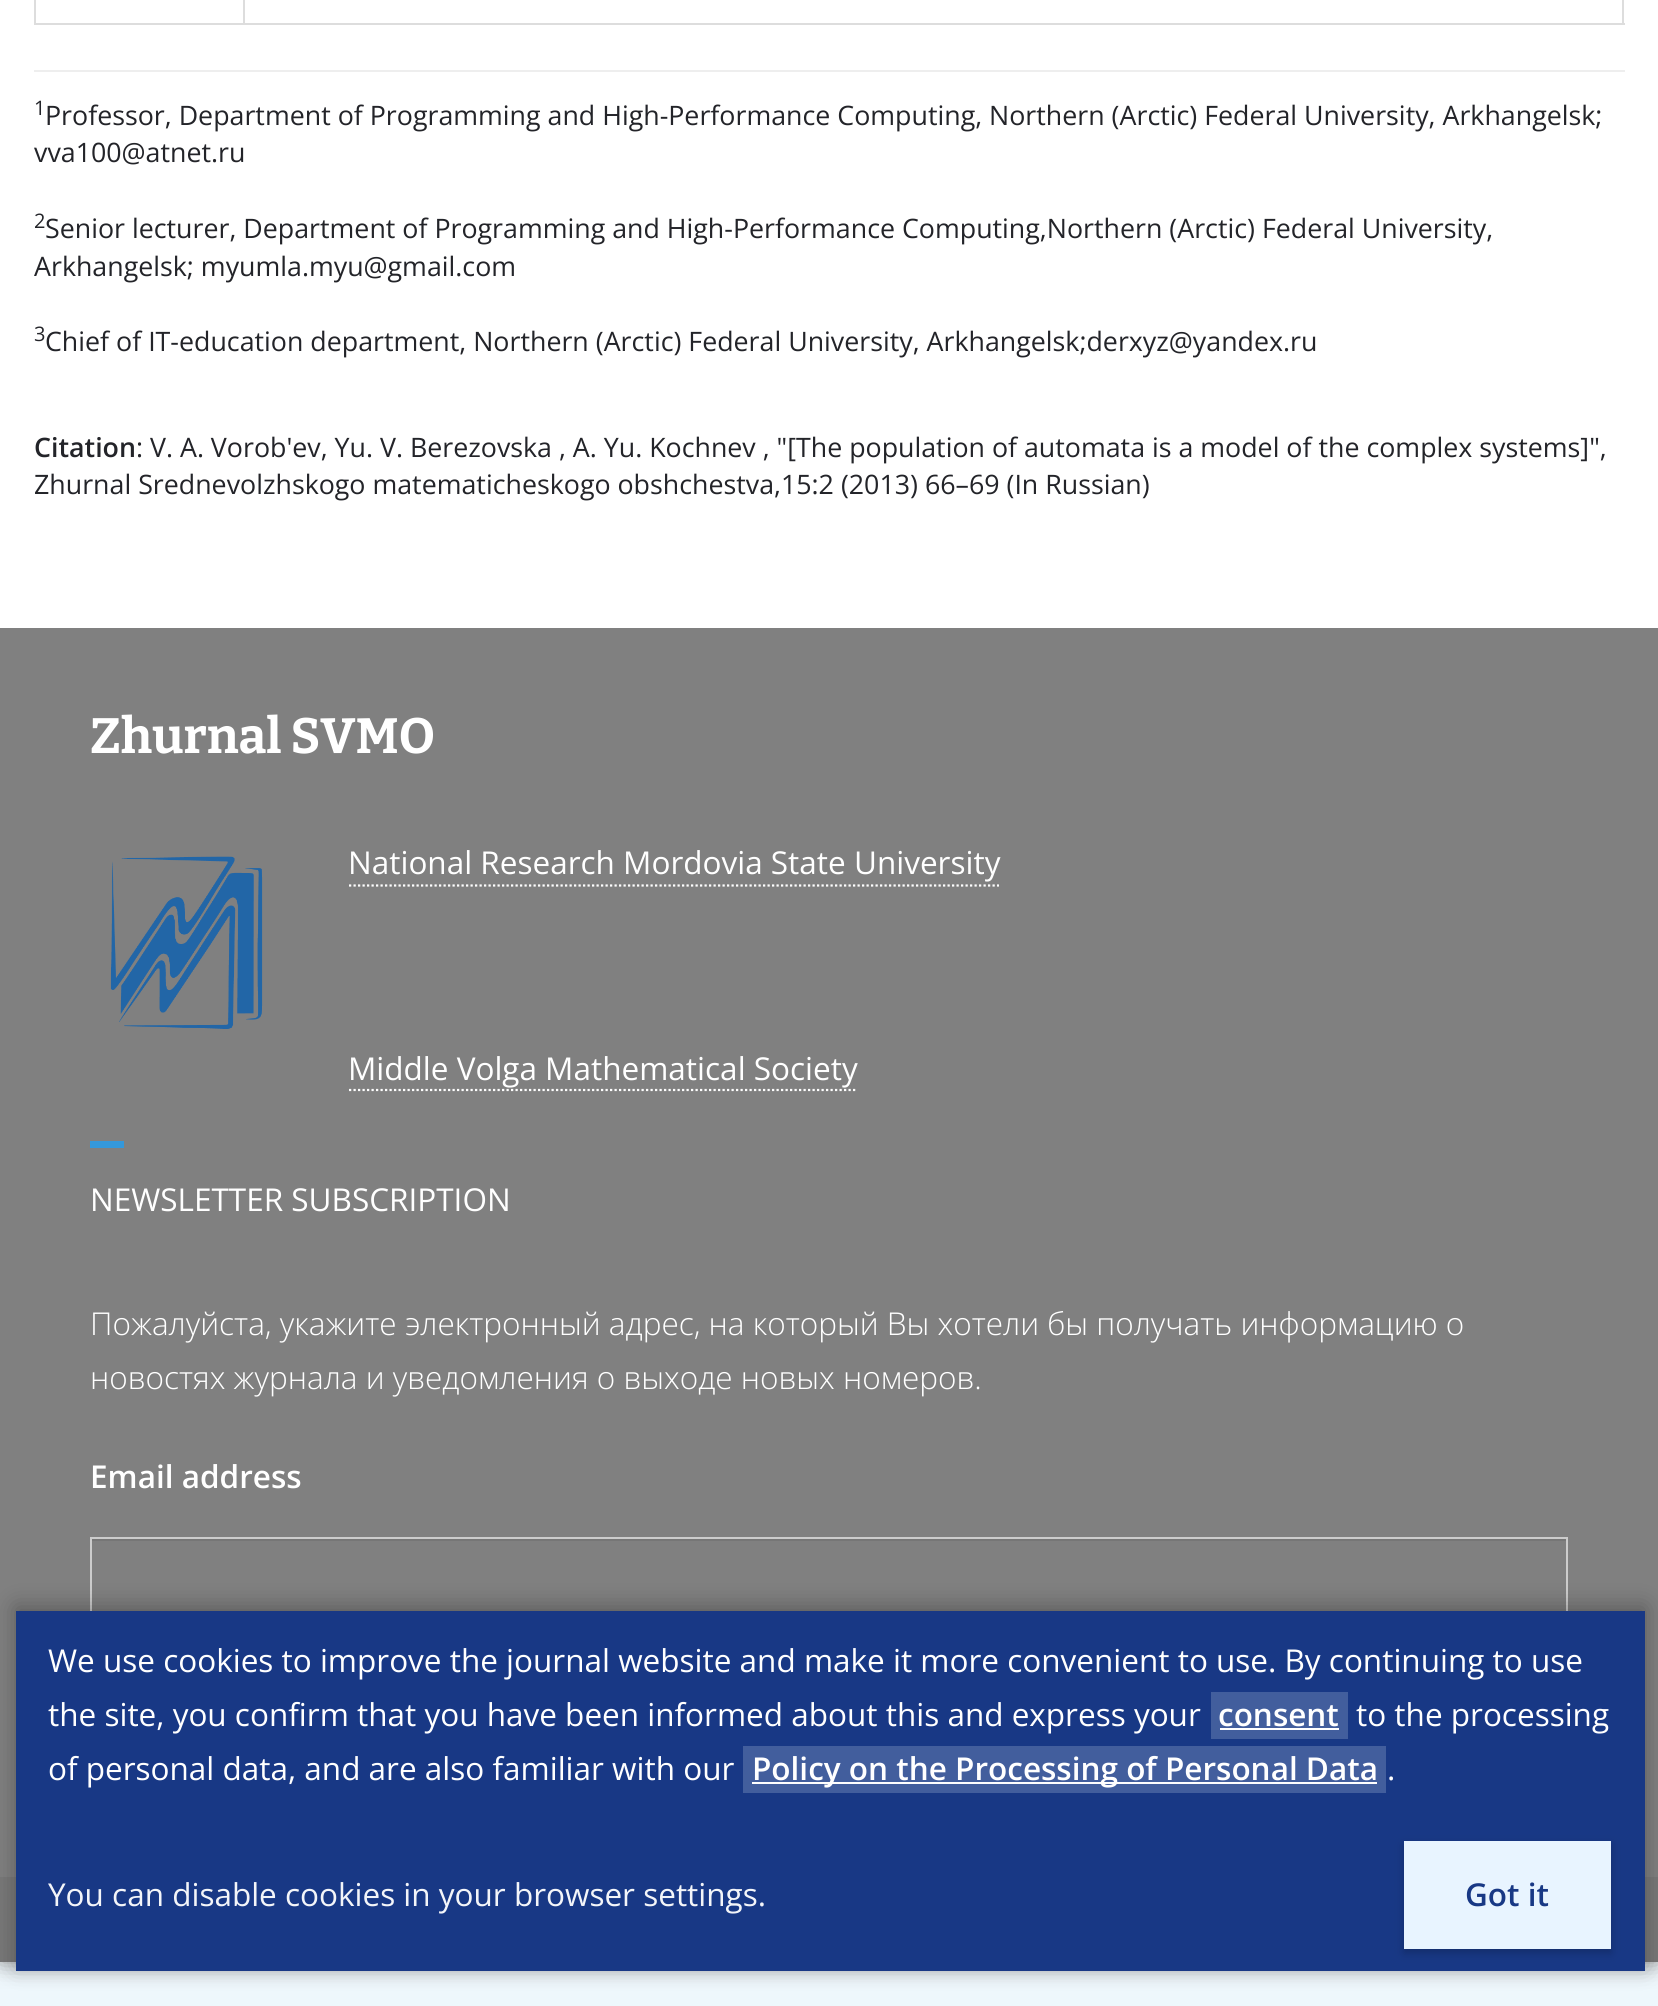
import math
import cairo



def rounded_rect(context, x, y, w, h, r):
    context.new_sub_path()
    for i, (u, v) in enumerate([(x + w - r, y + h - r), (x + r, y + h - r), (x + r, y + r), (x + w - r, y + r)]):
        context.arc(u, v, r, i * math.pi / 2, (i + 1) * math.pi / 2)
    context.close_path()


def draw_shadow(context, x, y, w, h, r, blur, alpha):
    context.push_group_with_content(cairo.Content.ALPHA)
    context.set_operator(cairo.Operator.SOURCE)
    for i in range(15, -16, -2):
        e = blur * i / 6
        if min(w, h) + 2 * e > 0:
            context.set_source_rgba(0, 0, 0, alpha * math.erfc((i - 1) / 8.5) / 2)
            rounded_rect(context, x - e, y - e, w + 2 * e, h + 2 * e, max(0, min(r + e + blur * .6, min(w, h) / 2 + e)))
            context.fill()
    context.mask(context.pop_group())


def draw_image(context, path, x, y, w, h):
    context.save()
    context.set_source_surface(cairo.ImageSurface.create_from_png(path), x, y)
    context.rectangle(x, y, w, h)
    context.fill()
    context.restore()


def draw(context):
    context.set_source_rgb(238 / 255, 247 / 255, 252 / 255)
    context.paint()
    context.set_source_rgb(153 / 255, 153 / 255, 153 / 255)
    draw_shadow(context, 0, -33, 1658, 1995, 0, 11, 1)
    context.set_source_rgb(1, 1, 1)
    context.rectangle(0, 0, 1658, 628)
    context.fill()
    context.set_source_rgb(221 / 255, 221 / 255, 221 / 255)
    context.rectangle(1622, 0, 2, 25)
    context.fill()
    context.rectangle(34, 23, 1591, 2)
    context.fill()
    context.rectangle(34, 0, 2, 25)
    context.fill()
    context.rectangle(243, 0, 2, 25)
    context.fill()
    context.set_source_rgb(238 / 255, 238 / 255, 238 / 255)
    context.rectangle(34, 70, 1591, 2)
    context.fill()
    context.set_source_rgb(128 / 255, 128 / 255, 128 / 255)
    context.rectangle(0, 628, 1658, 1249)
    context.fill()
    draw_image(context, "images/1.png", 110, 856, 153, 173)
    context.new_path()
    context.move_to(349, 885.5)
    context.line_to(999, 885.5)
    context.set_source_rgb(1, 1, 1)
    context.set_line_width(2.2)
    context.set_dash([2.25, 2.25])
    context.stroke()
    context.new_path()
    context.move_to(349, 1090)
    context.line_to(857, 1090)
    context.stroke()
    context.set_source_rgb(52 / 255, 152 / 255, 219 / 255)
    context.rectangle(90, 1141, 34, 7)
    context.fill()
    context.set_source_rgb(118 / 255, 118 / 255, 118 / 255)
    context.rectangle(92, 1539, 1474, 2)
    context.fill()
    context.rectangle(91, 1538, 1476, 74)
    context.set_source_rgb(204 / 255, 204 / 255, 204 / 255)
    context.set_line_width(2)
    context.set_dash([])
    context.stroke()
    context.set_source_rgb(120 / 255, 120 / 255, 120 / 255)
    context.rectangle(0, 1877, 1658, 85)
    context.fill()
    context.set_source_rgb(0, 0, 0)
    draw_shadow(context, 16, 1607, 1629, 360, 0, 11, 0.3)
    context.set_source_rgb(24 / 255, 56 / 255, 133 / 255)
    context.rectangle(16, 1611, 1629, 360)
    context.fill()
    context.set_source_rgb(66 / 255, 94 / 255, 157 / 255)
    context.rectangle(1211, 1692, 137, 47)
    context.fill()
    context.set_source_rgb(1, 1, 1)
    context.rectangle(1220, 1728, 119, 2)
    context.fill()
    context.set_source_rgb(66 / 255, 94 / 255, 157 / 255)
    context.rectangle(743, 1746, 643, 47)
    context.fill()
    context.set_source_rgb(1, 1, 1)
    context.rectangle(752, 1782, 625, 2)
    context.fill()
    context.set_source_rgb(0, 0, 0)
    draw_shadow(context, 1404, 1845, 207, 108, 0, 4.5, 0.2)
    context.set_source_rgb(232 / 255, 244 / 255, 1)
    context.rectangle(1404, 1841, 207, 108)
    context.fill()
    context.select_font_face("Open Sans")
    context.set_font_size(20)
    context.set_source_rgb(35 / 255, 36 / 255, 41 / 255)
    context.move_to(34, 115)
    context.show_text("1")
    context.set_font_size(26.78)
    context.move_to(45, 125)
    context.show_text("Professor, Department of Programming and High-Performance Computing, Northern (Arctic) Federal University, Arkhangelsk;")
    context.move_to(34, 162)
    context.show_text("vva100@atnet.ru")
    context.set_font_size(20)
    context.move_to(34, 228)
    context.show_text("2")
    context.set_font_size(26.78)
    context.move_to(45, 238)
    context.show_text("Senior lecturer, Department of Programming and High-Performance Computing,Northern (Arctic) Federal University,")
    context.move_to(34, 276)
    context.show_text("Arkhangelsk; myumla.myu@gmail.com")
    context.set_font_size(20)
    context.move_to(34, 341)
    context.show_text("3")
    context.set_font_size(26.78)
    context.move_to(45, 351)
    context.show_text("Chief of IT-education department, Northern (Arctic) Federal University, Arkhangelsk;derxyz@yandex.ru")
    context.select_font_face("Open Sans SemiBold")
    context.move_to(34, 457)
    context.show_text("Citation")
    context.select_font_face("Open Sans")
    context.move_to(136, 457)
    context.show_text(": V. A. Vorob'ev, Yu. V. Berezovska , A. Yu. Kochnev , \"[The population of automata is a model of the complex systems]\",")
    context.move_to(34, 494)
    context.show_text("Zhurnal Srednevolzhskogo matematicheskogo obshchestva,15:2 (2013) 66–69 (In Russian)")
    context.select_font_face("Bitter", cairo.FontSlant.NORMAL, cairo.FontWeight.BOLD)
    context.set_font_size(49.5)
    context.set_source_rgb(1, 1, 1)
    context.move_to(90, 753)
    context.show_text("Zhurnal SVMO")
    context.select_font_face("Open Sans")
    context.set_font_size(31.5)
    context.move_to(348, 874)
    context.show_text("National Research Mordovia State University")
    context.move_to(348, 1080)
    context.show_text("Middle Volga Mathematical Society")
    context.move_to(90, 1211)
    context.show_text("NEWSLETTER SUBSCRIPTION")
    context.select_font_face("Open Sans Light")
    context.move_to(90, 1335)
    context.show_text("Пожалуйста, укажите электронный адрес, на который Вы хотели бы получать информацию о")
    context.move_to(90, 1389)
    context.show_text("новостях журнала и уведомления о выходе новых номеров.")
    context.select_font_face("Open Sans SemiBold")
    context.move_to(90, 1488)
    context.show_text("Email address")
    context.select_font_face("Open Sans")
    context.move_to(48, 1672)
    context.show_text("We use cookies to improve the journal website and make it more convenient to use. By continuing to use")
    context.move_to(48, 1726)
    context.show_text("the site, you confirm that you have been informed about this and express your")
    context.select_font_face("Open Sans SemiBold")
    context.move_to(1218, 1726)
    context.show_text("consent")
    context.select_font_face("Open Sans")
    context.move_to(1356, 1726)
    context.show_text("to the processing")
    context.move_to(48, 1780)
    context.show_text("of personal data, and are also familiar with our")
    context.select_font_face("Open Sans SemiBold")
    context.move_to(752, 1780)
    context.show_text("Policy on the Processing of Personal Data")
    context.select_font_face("Open Sans")
    context.move_to(1387, 1780)
    context.show_text(".")
    context.set_source_rgb(243 / 255, 245 / 255, 249 / 255)
    context.move_to(48, 1906)
    context.show_text("You can disable cookies in your browser settings.")
    context.select_font_face("Open Sans SemiBold")
    context.set_source_rgb(24 / 255, 56 / 255, 133 / 255)
    context.move_to(1465, 1906)
    context.show_text("Got it")


surface = cairo.ImageSurface(cairo.Format.RGB24, 1658, 2006)
context = cairo.Context(surface)
options = cairo.FontOptions()
options.set_hint_metrics(cairo.HintMetrics.OFF)
options.set_hint_style(cairo.HintStyle.NONE)
context.set_font_options(options)
context.set_miter_limit(4)
draw(context)
surface.write_to_png("out.png")
